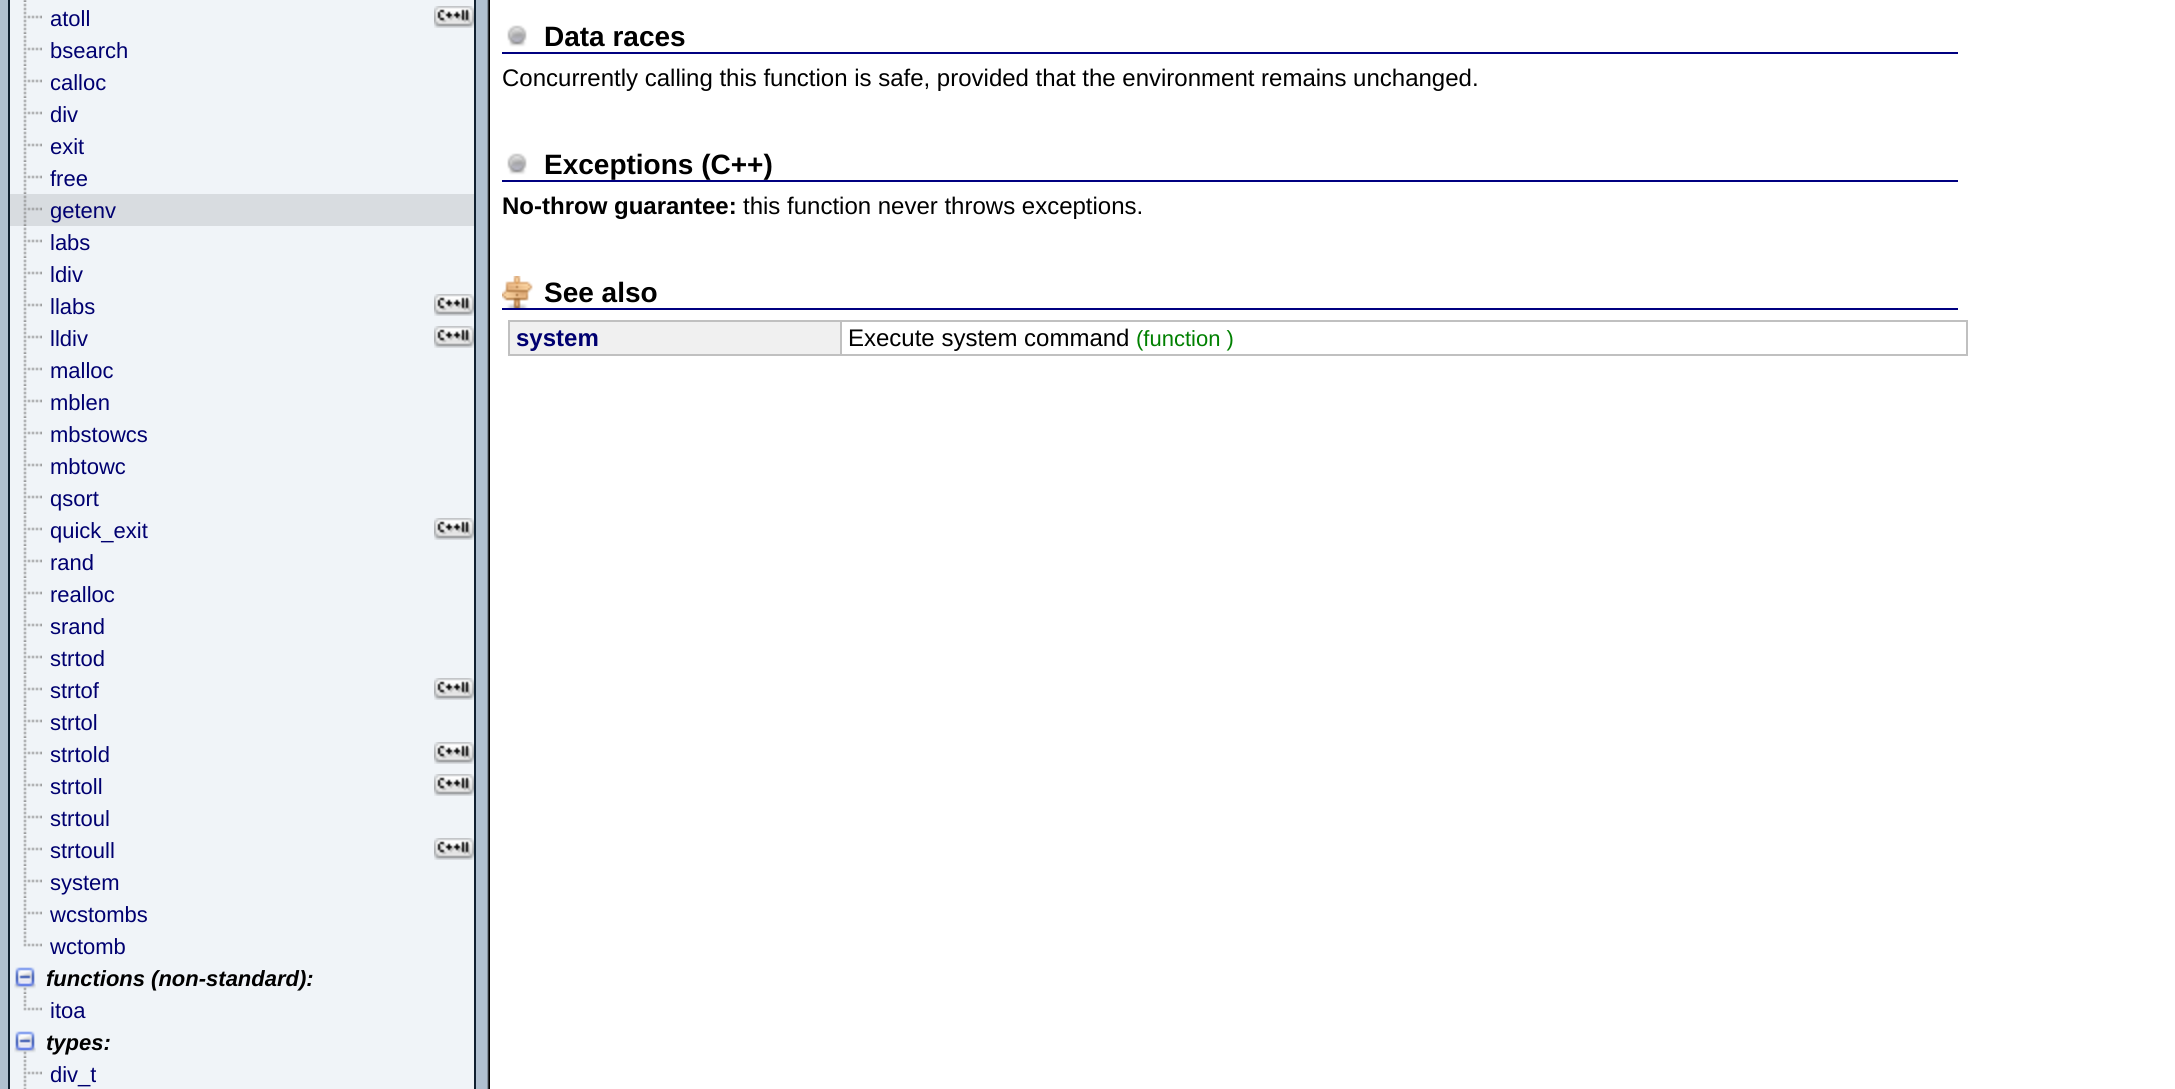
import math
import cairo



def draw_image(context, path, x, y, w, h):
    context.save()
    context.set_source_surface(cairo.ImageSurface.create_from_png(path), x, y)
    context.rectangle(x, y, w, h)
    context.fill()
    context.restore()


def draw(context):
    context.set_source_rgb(1, 1, 1)
    context.paint()
    draw_image(context, "images/1.png", 0, 0, 490, 1089)
    context.set_source_rgb(240 / 255, 244 / 255, 248 / 255)
    context.rectangle(10, 0, 464, 1089)
    context.fill()
    context.set_source_rgb(16 / 255, 32 / 255, 48 / 255)
    context.rectangle(474, 0, 2, 1089)
    context.fill()
    context.rectangle(8, 0, 2, 1089)
    context.fill()
    draw_image(context, "images/2.png", 23, 0, 4, 2)
    draw_image(context, "images/3.png", 23, 3, 19, 31)
    draw_image(context, "images/4.png", 434, 6, 40, 22)
    draw_image(context, "images/3.png", 23, 35, 19, 31)
    draw_image(context, "images/3.png", 23, 67, 19, 31)
    draw_image(context, "images/3.png", 23, 99, 19, 31)
    draw_image(context, "images/3.png", 23, 131, 19, 31)
    draw_image(context, "images/3.png", 23, 163, 19, 31)
    context.set_source_rgb(216 / 255, 220 / 255, 224 / 255)
    context.rectangle(10, 194, 464, 32)
    context.fill()
    draw_image(context, "images/5.png", 23, 195, 19, 31)
    draw_image(context, "images/3.png", 23, 227, 19, 31)
    draw_image(context, "images/3.png", 23, 259, 19, 31)
    draw_image(context, "images/3.png", 23, 291, 19, 31)
    draw_image(context, "images/4.png", 434, 294, 40, 22)
    draw_image(context, "images/3.png", 23, 323, 19, 31)
    draw_image(context, "images/4.png", 434, 326, 40, 22)
    draw_image(context, "images/3.png", 23, 355, 19, 31)
    draw_image(context, "images/3.png", 23, 387, 19, 31)
    draw_image(context, "images/3.png", 23, 419, 19, 31)
    draw_image(context, "images/3.png", 23, 451, 19, 31)
    draw_image(context, "images/3.png", 23, 483, 19, 31)
    draw_image(context, "images/3.png", 23, 515, 19, 31)
    draw_image(context, "images/4.png", 434, 518, 40, 22)
    draw_image(context, "images/3.png", 23, 547, 19, 31)
    draw_image(context, "images/3.png", 23, 579, 19, 31)
    draw_image(context, "images/3.png", 23, 611, 19, 31)
    draw_image(context, "images/3.png", 23, 643, 19, 31)
    draw_image(context, "images/3.png", 23, 675, 19, 31)
    draw_image(context, "images/4.png", 434, 678, 40, 22)
    draw_image(context, "images/3.png", 23, 707, 19, 31)
    draw_image(context, "images/3.png", 23, 739, 19, 31)
    draw_image(context, "images/4.png", 434, 742, 40, 22)
    draw_image(context, "images/3.png", 23, 771, 19, 31)
    draw_image(context, "images/4.png", 434, 774, 40, 22)
    draw_image(context, "images/3.png", 23, 803, 19, 31)
    draw_image(context, "images/3.png", 23, 835, 19, 31)
    draw_image(context, "images/4.png", 434, 838, 40, 22)
    draw_image(context, "images/3.png", 23, 867, 19, 31)
    draw_image(context, "images/3.png", 23, 899, 19, 31)
    draw_image(context, "images/6.png", 23, 931, 19, 16)
    draw_image(context, "images/7.png", 14, 967, 22, 27)
    draw_image(context, "images/6.png", 23, 995, 19, 16)
    draw_image(context, "images/7.png", 14, 1031, 22, 27)
    draw_image(context, "images/8.png", 23, 1059, 19, 30)
    context.set_source_rgb(0, 0, 128 / 255)
    context.rectangle(502, 52, 1456, 2)
    context.fill()
    draw_image(context, "images/9.png", 507, 25, 20, 22)
    context.rectangle(502, 180, 1456, 2)
    context.fill()
    draw_image(context, "images/9.png", 507, 153, 20, 22)
    context.rectangle(502, 308, 1456, 2)
    context.fill()
    draw_image(context, "images/10.png", 502, 276, 31, 32)
    context.set_source_rgb(240 / 255, 240 / 255, 240 / 255)
    context.rectangle(510, 322, 330, 32)
    context.fill()
    context.rectangle(509, 321, 1458, 34)
    context.set_source_rgb(192 / 255, 192 / 255, 192 / 255)
    context.stroke()
    context.rectangle(840, 322, 2, 32)
    context.fill()
    context.select_font_face("Liberation Sans")
    context.set_font_size(22)
    context.set_source_rgb(0, 0, 112 / 255)
    context.move_to(50, 26)
    context.show_text("atoll")
    context.move_to(50, 58)
    context.show_text("bsearch")
    context.move_to(50, 90)
    context.show_text("calloc")
    context.move_to(50, 122)
    context.show_text("div")
    context.move_to(50, 154)
    context.show_text("exit")
    context.move_to(50, 186)
    context.show_text("free")
    context.move_to(50, 218)
    context.show_text("getenv")
    context.move_to(50, 250)
    context.show_text("labs")
    context.move_to(50, 282)
    context.show_text("ldiv")
    context.move_to(50, 314)
    context.show_text("llabs")
    context.move_to(50, 346)
    context.show_text("lldiv")
    context.move_to(50, 378)
    context.show_text("malloc")
    context.move_to(50, 410)
    context.show_text("mblen")
    context.move_to(50, 442)
    context.show_text("mbstowcs")
    context.move_to(50, 474)
    context.show_text("mbtowc")
    context.move_to(50, 506)
    context.show_text("qsort")
    context.move_to(50, 538)
    context.show_text("quick_exit")
    context.move_to(50, 570)
    context.show_text("rand")
    context.move_to(50, 602)
    context.show_text("realloc")
    context.move_to(50, 634)
    context.show_text("srand")
    context.move_to(50, 666)
    context.show_text("strtod")
    context.move_to(50, 698)
    context.show_text("strtof")
    context.move_to(50, 730)
    context.show_text("strtol")
    context.move_to(50, 762)
    context.show_text("strtold")
    context.move_to(50, 794)
    context.show_text("strtoll")
    context.move_to(50, 826)
    context.show_text("strtoul")
    context.move_to(50, 858)
    context.show_text("strtoull")
    context.move_to(50, 890)
    context.show_text("system")
    context.move_to(50, 922)
    context.show_text("wcstombs")
    context.move_to(50, 954)
    context.show_text("wctomb")
    context.select_font_face("Liberation Sans", cairo.FontSlant.ITALIC, cairo.FontWeight.BOLD)
    context.set_source_rgb(0, 0, 0)
    context.move_to(46, 986)
    context.show_text("functions (non-standard):")
    context.select_font_face("Liberation Sans")
    context.set_source_rgb(0, 0, 112 / 255)
    context.move_to(50, 1018)
    context.show_text("itoa")
    context.select_font_face("Liberation Sans", cairo.FontSlant.ITALIC, cairo.FontWeight.BOLD)
    context.set_source_rgb(0, 0, 0)
    context.move_to(46, 1050)
    context.show_text("types:")
    context.select_font_face("Liberation Sans")
    context.set_source_rgb(0, 0, 112 / 255)
    context.move_to(50, 1082)
    context.show_text("div_t")
    context.select_font_face("Liberation Sans", cairo.FontSlant.NORMAL, cairo.FontWeight.BOLD)
    context.set_font_size(28)
    context.set_source_rgb(0, 0, 0)
    context.move_to(544, 46)
    context.show_text("Data races")
    context.select_font_face("Liberation Sans")
    context.set_font_size(24)
    context.move_to(502, 86)
    context.show_text("Concurrently calling this function is safe, provided that the environment remains unchanged.")
    context.select_font_face("Liberation Sans", cairo.FontSlant.NORMAL, cairo.FontWeight.BOLD)
    context.set_font_size(28)
    context.move_to(544, 174)
    context.show_text("Exceptions (C++)")
    context.set_font_size(24)
    context.move_to(502, 214)
    context.show_text("No-throw guarantee:")
    context.select_font_face("Liberation Sans")
    context.move_to(743, 214)
    context.show_text("this function never throws exceptions.")
    context.select_font_face("Liberation Sans", cairo.FontSlant.NORMAL, cairo.FontWeight.BOLD)
    context.set_font_size(28)
    context.move_to(544, 302)
    context.show_text("See also")
    context.set_font_size(24)
    context.set_source_rgb(0, 0, 112 / 255)
    context.move_to(516, 346)
    context.show_text("system")
    context.select_font_face("Liberation Sans")
    context.set_source_rgb(0, 0, 0)
    context.move_to(848, 346)
    context.show_text("Execute system command")
    context.set_font_size(22)
    context.set_source_rgb(0, 128 / 255, 0)
    context.move_to(1136, 346)
    context.show_text("(function )")


surface = cairo.ImageSurface(cairo.Format.RGB24, 2175, 1089)
context = cairo.Context(surface)
options = cairo.FontOptions()
options.set_hint_metrics(cairo.HintMetrics.OFF)
options.set_hint_style(cairo.HintStyle.NONE)
context.set_font_options(options)
context.set_miter_limit(4)
draw(context)
surface.write_to_png("out.png")
